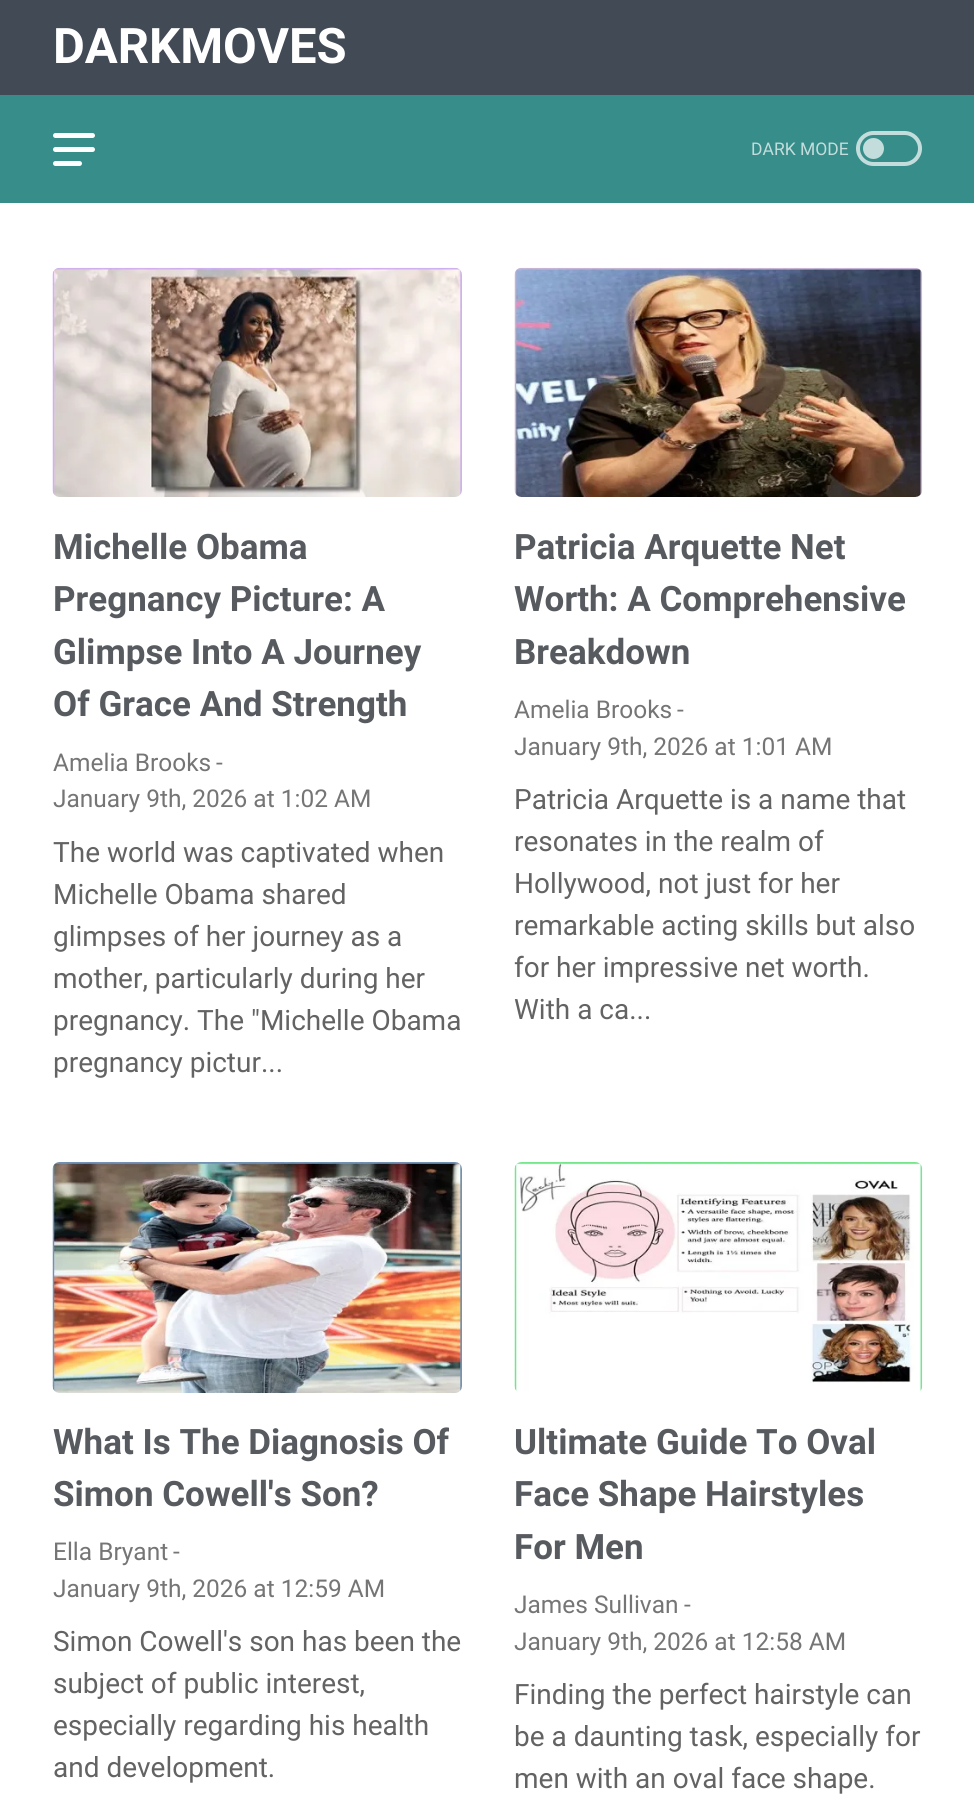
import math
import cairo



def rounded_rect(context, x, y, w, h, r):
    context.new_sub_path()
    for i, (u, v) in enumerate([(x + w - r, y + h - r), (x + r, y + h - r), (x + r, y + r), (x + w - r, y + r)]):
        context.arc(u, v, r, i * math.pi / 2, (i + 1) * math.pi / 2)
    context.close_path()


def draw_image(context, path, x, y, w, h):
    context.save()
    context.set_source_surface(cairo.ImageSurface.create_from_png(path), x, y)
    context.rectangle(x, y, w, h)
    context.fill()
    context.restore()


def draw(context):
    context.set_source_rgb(55 / 255, 141 / 255, 138 / 255)
    context.paint()
    context.set_source_rgb(66 / 255, 74 / 255, 86 / 255)
    context.rectangle(0, 0, 974, 95)
    context.fill()
    context.set_source_rgb(1, 1, 1)
    rounded_rect(context, 53, 133, 42, 5, 2.5)
    context.fill()
    rounded_rect(context, 53, 147, 42, 5, 2.5)
    context.fill()
    rounded_rect(context, 53, 161, 29, 5, 2.5)
    context.fill()
    rounded_rect(context, 858, 133, 62, 31, 15.5)
    context.set_source_rgb(195 / 255, 221 / 255, 220 / 255)
    context.set_line_width(4)
    context.stroke()
    context.arc(873.5, 148.5, 10.5, 0, 2 * math.pi)
    context.fill()
    context.set_source_rgb(1, 1, 1)
    context.rectangle(0, 203, 974, 1601)
    context.fill()
    draw_image(context, "images/1.png", 52, 267, 410, 230)
    draw_image(context, "images/2.png", 514, 267, 409, 230)
    draw_image(context, "images/3.png", 52, 1162, 410, 231)
    draw_image(context, "images/4.png", 514, 1162, 409, 229)
    context.select_font_face("Roboto", cairo.FontSlant.NORMAL, cairo.FontWeight.BOLD)
    context.set_font_size(49)
    context.move_to(53, 63)
    context.show_text("DARKMOVES")
    context.select_font_face("Roboto")
    context.set_font_size(17.5)
    context.set_source_rgb(195 / 255, 221 / 255, 220 / 255)
    context.move_to(751, 155)
    context.show_text("DARK MODE")
    context.select_font_face("Roboto", cairo.FontSlant.NORMAL, cairo.FontWeight.BOLD)
    context.set_font_size(35)
    context.set_source_rgb(87 / 255, 90 / 255, 95 / 255)
    context.move_to(53, 559)
    context.show_text("Michelle Obama")
    context.move_to(53, 611)
    context.show_text("Pregnancy Picture: A")
    context.move_to(53, 664)
    context.show_text("Glimpse Into A Journey")
    context.move_to(53, 716)
    context.show_text("Of Grace And Strength")
    context.select_font_face("Roboto")
    context.set_font_size(24.5)
    context.set_source_rgb(117 / 255, 117 / 255, 117 / 255)
    context.move_to(53, 771)
    context.show_text("Amelia Brooks")
    context.move_to(216, 771)
    context.show_text("-")
    context.move_to(53, 807)
    context.show_text("January 9th, 2026 at 1:02 AM")
    context.set_font_size(28)
    context.set_source_rgb(99 / 255, 99 / 255, 99 / 255)
    context.move_to(53, 862)
    context.show_text("The world was captivated when")
    context.move_to(53, 904)
    context.show_text("Michelle Obama shared")
    context.move_to(53, 946)
    context.show_text("glimpses of her journey as a")
    context.move_to(53, 988)
    context.show_text("mother, particularly during her")
    context.move_to(53, 1030)
    context.show_text("pregnancy. The \"Michelle Obama")
    context.move_to(53, 1072)
    context.show_text("pregnancy pictur...")
    context.select_font_face("Roboto", cairo.FontSlant.NORMAL, cairo.FontWeight.BOLD)
    context.set_font_size(35)
    context.set_source_rgb(87 / 255, 90 / 255, 95 / 255)
    context.move_to(514, 559)
    context.show_text("Patricia Arquette Net")
    context.move_to(514, 611)
    context.show_text("Worth: A Comprehensive")
    context.move_to(514, 664)
    context.show_text("Breakdown")
    context.select_font_face("Roboto")
    context.set_font_size(24.5)
    context.set_source_rgb(117 / 255, 117 / 255, 117 / 255)
    context.move_to(514, 718)
    context.show_text("Amelia Brooks")
    context.move_to(677, 718)
    context.show_text("-")
    context.move_to(514, 755)
    context.show_text("January 9th, 2026 at 1:01 AM")
    context.set_font_size(28)
    context.set_source_rgb(99 / 255, 99 / 255, 99 / 255)
    context.move_to(514, 809)
    context.show_text("Patricia Arquette is a name that")
    context.move_to(514, 851)
    context.show_text("resonates in the realm of")
    context.move_to(514, 893)
    context.show_text("Hollywood, not just for her")
    context.move_to(514, 935)
    context.show_text("remarkable acting skills but also")
    context.move_to(514, 977)
    context.show_text("for her impressive net worth.")
    context.move_to(514, 1019)
    context.show_text("With a ca...")
    context.select_font_face("Roboto", cairo.FontSlant.NORMAL, cairo.FontWeight.BOLD)
    context.set_font_size(35)
    context.set_source_rgb(87 / 255, 90 / 255, 95 / 255)
    context.move_to(53, 1454)
    context.show_text("What Is The Diagnosis Of")
    context.move_to(53, 1506)
    context.show_text("Simon Cowell's Son?")
    context.select_font_face("Roboto")
    context.set_font_size(24.5)
    context.set_source_rgb(117 / 255, 117 / 255, 117 / 255)
    context.move_to(53, 1560)
    context.show_text("Ella Bryant")
    context.move_to(173, 1560)
    context.show_text("-")
    context.move_to(53, 1597)
    context.show_text("January 9th, 2026 at 12:59 AM")
    context.set_font_size(28)
    context.set_source_rgb(99 / 255, 99 / 255, 99 / 255)
    context.move_to(53, 1651)
    context.show_text("Simon Cowell's son has been the")
    context.move_to(53, 1693)
    context.show_text("subject of public interest,")
    context.move_to(53, 1735)
    context.show_text("especially regarding his health")
    context.move_to(53, 1777)
    context.show_text("and development.")
    context.select_font_face("Roboto", cairo.FontSlant.NORMAL, cairo.FontWeight.BOLD)
    context.set_font_size(35)
    context.set_source_rgb(87 / 255, 90 / 255, 95 / 255)
    context.move_to(514, 1454)
    context.show_text("Ultimate Guide To Oval")
    context.move_to(514, 1506)
    context.show_text("Face Shape Hairstyles")
    context.move_to(514, 1559)
    context.show_text("For Men")
    context.select_font_face("Roboto")
    context.set_font_size(24.5)
    context.set_source_rgb(117 / 255, 117 / 255, 117 / 255)
    context.move_to(514, 1613)
    context.show_text("James Sullivan")
    context.move_to(684, 1613)
    context.show_text("-")
    context.move_to(514, 1650)
    context.show_text("January 9th, 2026 at 12:58 AM")
    context.set_font_size(28)
    context.set_source_rgb(99 / 255, 99 / 255, 99 / 255)
    context.move_to(514, 1704)
    context.show_text("Finding the perfect hairstyle can")
    context.move_to(514, 1746)
    context.show_text("be a daunting task, especially for")
    context.move_to(514, 1788)
    context.show_text("men with an oval face shape.")


surface = cairo.ImageSurface(cairo.Format.RGB24, 974, 1804)
context = cairo.Context(surface)
options = cairo.FontOptions()
options.set_hint_metrics(cairo.HintMetrics.OFF)
options.set_hint_style(cairo.HintStyle.NONE)
context.set_font_options(options)
context.set_miter_limit(4)
draw(context)
surface.write_to_png("out.png")
